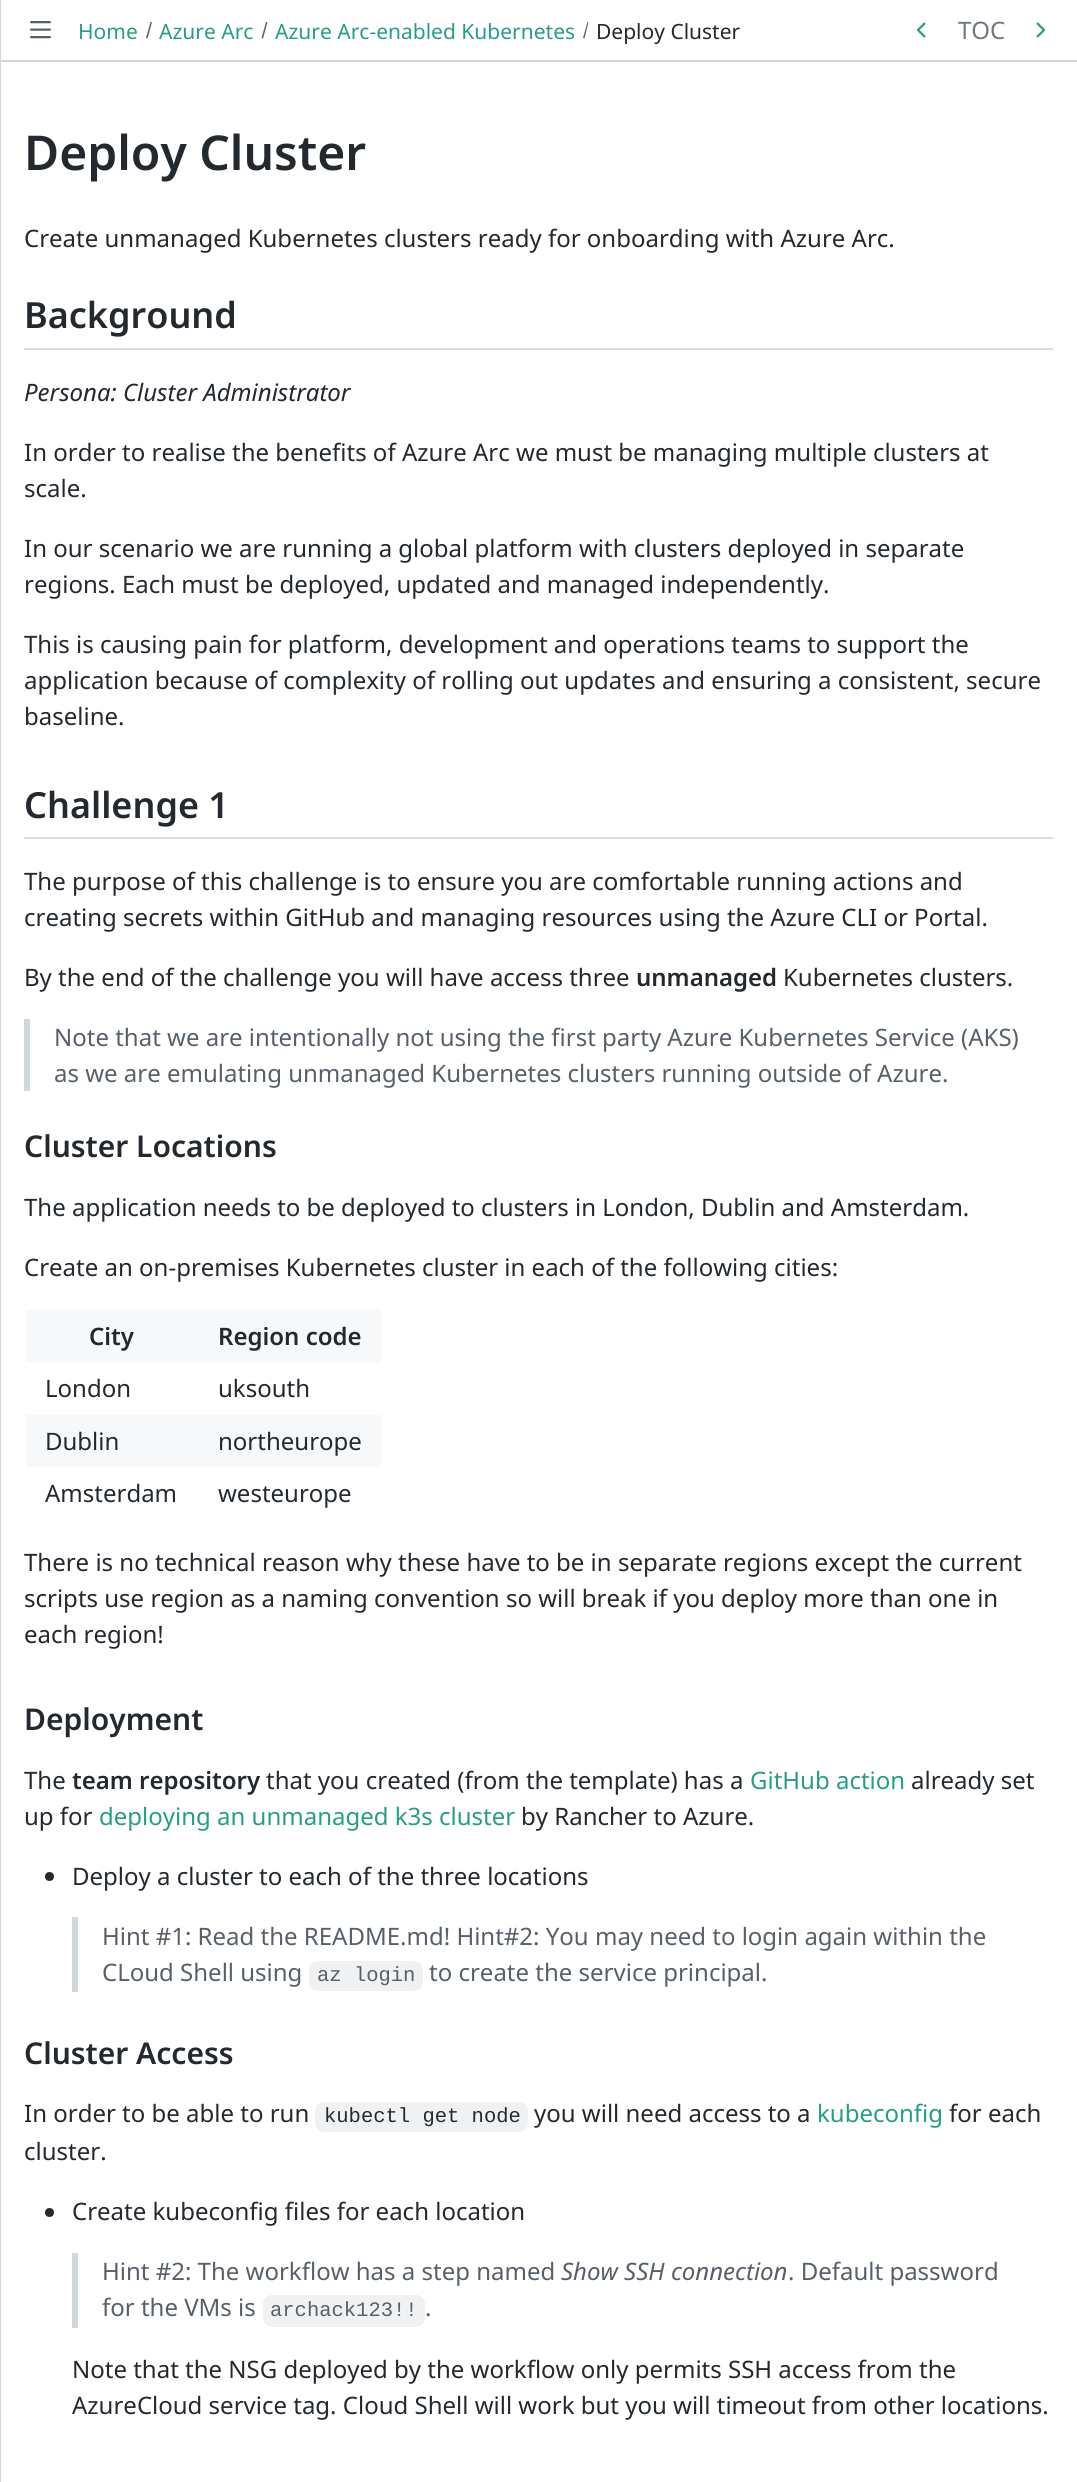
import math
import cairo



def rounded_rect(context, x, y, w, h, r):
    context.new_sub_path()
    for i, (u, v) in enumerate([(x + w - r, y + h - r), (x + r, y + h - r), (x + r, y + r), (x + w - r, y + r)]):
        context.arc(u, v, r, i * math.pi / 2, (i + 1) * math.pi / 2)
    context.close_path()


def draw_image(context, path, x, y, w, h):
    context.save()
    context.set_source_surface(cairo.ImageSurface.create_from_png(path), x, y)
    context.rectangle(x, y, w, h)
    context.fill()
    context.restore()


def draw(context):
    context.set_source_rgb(1, 1, 1)
    context.paint()
    context.set_source_rgb(208 / 255, 215 / 255, 222 / 255)
    context.rectangle(0, 60, 1077, 2)
    context.fill()
    context.rectangle(0, 0, 1, 2482)
    context.fill()
    draw_image(context, "images/1.png", 30, 21, 21, 18)
    context.set_source_rgb(87 / 255, 96 / 255, 106 / 255)
    context.new_path()
    context.move_to(150.5, 22)
    context.line_to(152, 22)
    context.line_to(147.5, 38.5)
    context.line_to(146, 38)
    context.close_path()
    context.fill()
    context.new_path()
    context.move_to(266, 22)
    context.line_to(267.5, 22)
    context.line_to(263, 38.5)
    context.line_to(261.5, 38)
    context.close_path()
    context.fill()
    context.new_path()
    context.move_to(587.5, 22)
    context.line_to(588.5, 22)
    context.line_to(584.5, 38.5)
    context.line_to(583, 38)
    context.close_path()
    context.fill()
    draw_image(context, "images/2.png", 916, 22, 10, 16)
    draw_image(context, "images/3.png", 1036, 22, 10, 16)
    context.set_source_rgb(216 / 255, 222 / 255, 228 / 255)
    context.rectangle(24, 348, 1029, 2)
    context.fill()
    context.rectangle(24, 837, 1029, 2)
    context.fill()
    context.set_source_rgb(208 / 255, 215 / 255, 222 / 255)
    context.rectangle(24, 1019, 6, 72)
    context.fill()
    context.set_source_rgb(246 / 255, 248 / 255, 250 / 255)
    context.rectangle(26, 1310, 355, 52)
    context.fill()
    context.rectangle(26, 1415, 355, 52)
    context.fill()
    context.set_source_rgb(36 / 255, 41 / 255, 47 / 255)
    context.arc(49.5, 1876.5, 4.5, 0, 2 * math.pi)
    context.fill()
    context.set_source_rgb(208 / 255, 215 / 255, 222 / 255)
    context.rectangle(72, 1917, 6, 75)
    context.fill()
    context.set_source_rgb(239 / 255, 241 / 255, 243 / 255)
    rounded_rect(context, 309, 1961, 114, 30, 9)
    context.fill()
    rounded_rect(context, 315, 2102, 213, 30, 9)
    context.fill()
    context.set_source_rgb(36 / 255, 41 / 255, 47 / 255)
    context.arc(49.5, 2212.5, 4.5, 0, 2 * math.pi)
    context.fill()
    context.set_source_rgb(208 / 255, 215 / 255, 222 / 255)
    context.rectangle(72, 2253, 6, 75)
    context.fill()
    context.set_source_rgb(239 / 255, 241 / 255, 243 / 255)
    rounded_rect(context, 263, 2295, 162, 32, 9)
    context.fill()
    context.select_font_face("Noto Sans")
    context.set_font_size(21)
    context.set_source_rgb(38 / 255, 158 / 255, 134 / 255)
    context.move_to(78, 39)
    context.show_text("Home")
    context.move_to(159, 39)
    context.show_text("Azure Arc")
    context.move_to(275, 39)
    context.show_text("Azure Arc-enabled Kubernetes")
    context.set_source_rgb(36 / 255, 41 / 255, 47 / 255)
    context.move_to(596, 39)
    context.show_text("Deploy Cluster")
    context.set_font_size(24)
    context.set_source_rgb(110 / 255, 119 / 255, 129 / 255)
    context.move_to(958, 39)
    context.show_text("TOC")
    context.select_font_face("Noto Sans SemiBold")
    context.set_font_size(48)
    context.set_source_rgb(36 / 255, 41 / 255, 47 / 255)
    context.move_to(24, 170)
    context.show_text("Deploy Cluster")
    context.select_font_face("Noto Sans")
    context.set_font_size(24)
    context.move_to(24, 247)
    context.show_text("Create unmanaged Kubernetes clusters ready for onboarding with Azure Arc.")
    context.select_font_face("Noto Sans SemiBold")
    context.set_font_size(36)
    context.move_to(24, 328)
    context.show_text("Background")
    context.select_font_face("Noto Sans", cairo.FontSlant.ITALIC)
    context.set_font_size(24)
    context.move_to(24, 401)
    context.show_text("Persona: Cluster Administrator")
    context.select_font_face("Noto Sans")
    context.move_to(24, 461)
    context.show_text("In order to realise the benefits of Azure Arc we must be managing multiple clusters at")
    context.move_to(24, 497)
    context.show_text("scale.")
    context.move_to(24, 557)
    context.show_text("In our scenario we are running a global platform with clusters deployed in separate")
    context.move_to(24, 593)
    context.show_text("regions. Each must be deployed, updated and managed independently.")
    context.move_to(24, 653)
    context.show_text("This is causing pain for platform, development and operations teams to support the")
    context.move_to(24, 689)
    context.show_text("application because of complexity of rolling out updates and ensuring a consistent, secure")
    context.move_to(24, 725)
    context.show_text("baseline.")
    context.select_font_face("Noto Sans SemiBold")
    context.set_font_size(36)
    context.move_to(24, 818)
    context.show_text("Challenge 1")
    context.select_font_face("Noto Sans")
    context.set_font_size(24)
    context.move_to(24, 890)
    context.show_text("The purpose of this challenge is to ensure you are comfortable running actions and")
    context.move_to(24, 926)
    context.show_text("creating secrets within GitHub and managing resources using the Azure CLI or Portal.")
    context.move_to(24, 986)
    context.show_text("By the end of the challenge you will have access three")
    context.select_font_face("Noto Sans SemiBold")
    context.move_to(636, 986)
    context.show_text("unmanaged")
    context.select_font_face("Noto Sans")
    context.move_to(783, 986)
    context.show_text("Kubernetes clusters.")
    context.set_source_rgb(87 / 255, 96 / 255, 106 / 255)
    context.move_to(54, 1046)
    context.show_text("Note that we are intentionally not using the first party Azure Kubernetes Service (AKS)")
    context.move_to(54, 1082)
    context.show_text("as we are emulating unmanaged Kubernetes clusters running outside of Azure.")
    context.select_font_face("Noto Sans SemiBold")
    context.set_font_size(30)
    context.set_source_rgb(36 / 255, 41 / 255, 47 / 255)
    context.move_to(24, 1157)
    context.show_text("Cluster Locations")
    context.select_font_face("Noto Sans")
    context.set_font_size(24)
    context.move_to(24, 1216)
    context.show_text("The application needs to be deployed to clusters in London, Dublin and Amsterdam.")
    context.move_to(24, 1276)
    context.show_text("Create an on-premises Kubernetes cluster in each of the following cities:")
    context.select_font_face("Noto Sans SemiBold")
    context.move_to(89, 1345)
    context.show_text("City")
    context.move_to(218, 1345)
    context.show_text("Region code")
    context.select_font_face("Noto Sans")
    context.move_to(45, 1397)
    context.show_text("London")
    context.move_to(218, 1397)
    context.show_text("uksouth")
    context.move_to(45, 1450)
    context.show_text("Dublin")
    context.move_to(218, 1450)
    context.show_text("northeurope")
    context.move_to(45, 1502)
    context.show_text("Amsterdam")
    context.move_to(218, 1502)
    context.show_text("westeurope")
    context.move_to(24, 1571)
    context.show_text("There is no technical reason why these have to be in separate regions except the current")
    context.move_to(24, 1607)
    context.show_text("scripts use region as a naming convention so will break if you deploy more than one in")
    context.move_to(24, 1643)
    context.show_text("each region!")
    context.select_font_face("Noto Sans SemiBold")
    context.set_font_size(30)
    context.move_to(24, 1730)
    context.show_text("Deployment")
    context.select_font_face("Noto Sans")
    context.set_font_size(24)
    context.move_to(24, 1789)
    context.show_text("The")
    context.select_font_face("Noto Sans SemiBold")
    context.move_to(72, 1789)
    context.show_text("team repository")
    context.select_font_face("Noto Sans")
    context.move_to(266, 1789)
    context.show_text("that you created (from the template) has a")
    context.set_source_rgb(38 / 255, 158 / 255, 134 / 255)
    context.move_to(750, 1789)
    context.show_text("GitHub action")
    context.set_source_rgb(36 / 255, 41 / 255, 47 / 255)
    context.move_to(911, 1789)
    context.show_text("already set")
    context.move_to(24, 1825)
    context.show_text("up for")
    context.set_source_rgb(38 / 255, 158 / 255, 134 / 255)
    context.move_to(99, 1825)
    context.show_text("deploying an unmanaged k3s cluster")
    context.set_source_rgb(36 / 255, 41 / 255, 47 / 255)
    context.move_to(521, 1825)
    context.show_text("by Rancher to Azure.")
    context.move_to(72, 1885)
    context.show_text("Deploy a cluster to each of the three locations")
    context.set_source_rgb(87 / 255, 96 / 255, 106 / 255)
    context.move_to(102, 1945)
    context.show_text("Hint #1: Read the README.md! Hint#2: You may need to login again within the")
    context.move_to(102, 1981)
    context.show_text("CLoud Shell using")
    context.select_font_face("Liberation Mono")
    context.set_font_size(20.5)
    context.move_to(317, 1981)
    context.show_text("az login")
    context.select_font_face("Noto Sans")
    context.set_font_size(24)
    context.move_to(429, 1981)
    context.show_text("to create the service principal.")
    context.select_font_face("Noto Sans SemiBold")
    context.set_font_size(30)
    context.set_source_rgb(36 / 255, 41 / 255, 47 / 255)
    context.move_to(24, 2064)
    context.show_text("Cluster Access")
    context.select_font_face("Noto Sans")
    context.set_font_size(24)
    context.move_to(24, 2122)
    context.show_text("In order to be able to run")
    context.select_font_face("Liberation Mono")
    context.set_font_size(20.5)
    context.move_to(324, 2122)
    context.show_text("kubectl get node")
    context.select_font_face("Noto Sans")
    context.set_font_size(24)
    context.move_to(534, 2122)
    context.show_text("you will need access to a")
    context.set_source_rgb(38 / 255, 158 / 255, 134 / 255)
    context.move_to(817, 2122)
    context.show_text("kubeconfig")
    context.set_source_rgb(36 / 255, 41 / 255, 47 / 255)
    context.move_to(949, 2122)
    context.show_text("for each")
    context.move_to(24, 2160)
    context.show_text("cluster.")
    context.move_to(72, 2220)
    context.show_text("Create kubeconfig files for each location")
    context.set_source_rgb(87 / 255, 96 / 255, 106 / 255)
    context.move_to(102, 2280)
    context.show_text("Hint #2: The workflow has a step named")
    context.select_font_face("Noto Sans", cairo.FontSlant.ITALIC)
    context.move_to(561, 2280)
    context.show_text("Show SSH connection")
    context.select_font_face("Noto Sans")
    context.move_to(788, 2280)
    context.show_text(". Default password")
    context.move_to(102, 2316)
    context.show_text("for the VMs is")
    context.select_font_face("Liberation Mono")
    context.set_font_size(20.5)
    context.move_to(270, 2316)
    context.show_text("archack123!!")
    context.select_font_face("Noto Sans")
    context.set_font_size(24)
    context.move_to(425, 2316)
    context.show_text(".")
    context.set_source_rgb(36 / 255, 41 / 255, 47 / 255)
    context.move_to(72, 2378)
    context.show_text("Note that the NSG deployed by the workflow only permits SSH access from the")
    context.move_to(72, 2414)
    context.show_text("AzureCloud service tag. Cloud Shell will work but you will timeout from other locations.")


surface = cairo.ImageSurface(cairo.Format.RGB24, 1077, 2482)
context = cairo.Context(surface)
options = cairo.FontOptions()
options.set_hint_metrics(cairo.HintMetrics.OFF)
options.set_hint_style(cairo.HintStyle.NONE)
context.set_font_options(options)
context.set_miter_limit(4)
draw(context)
surface.write_to_png("out.png")
